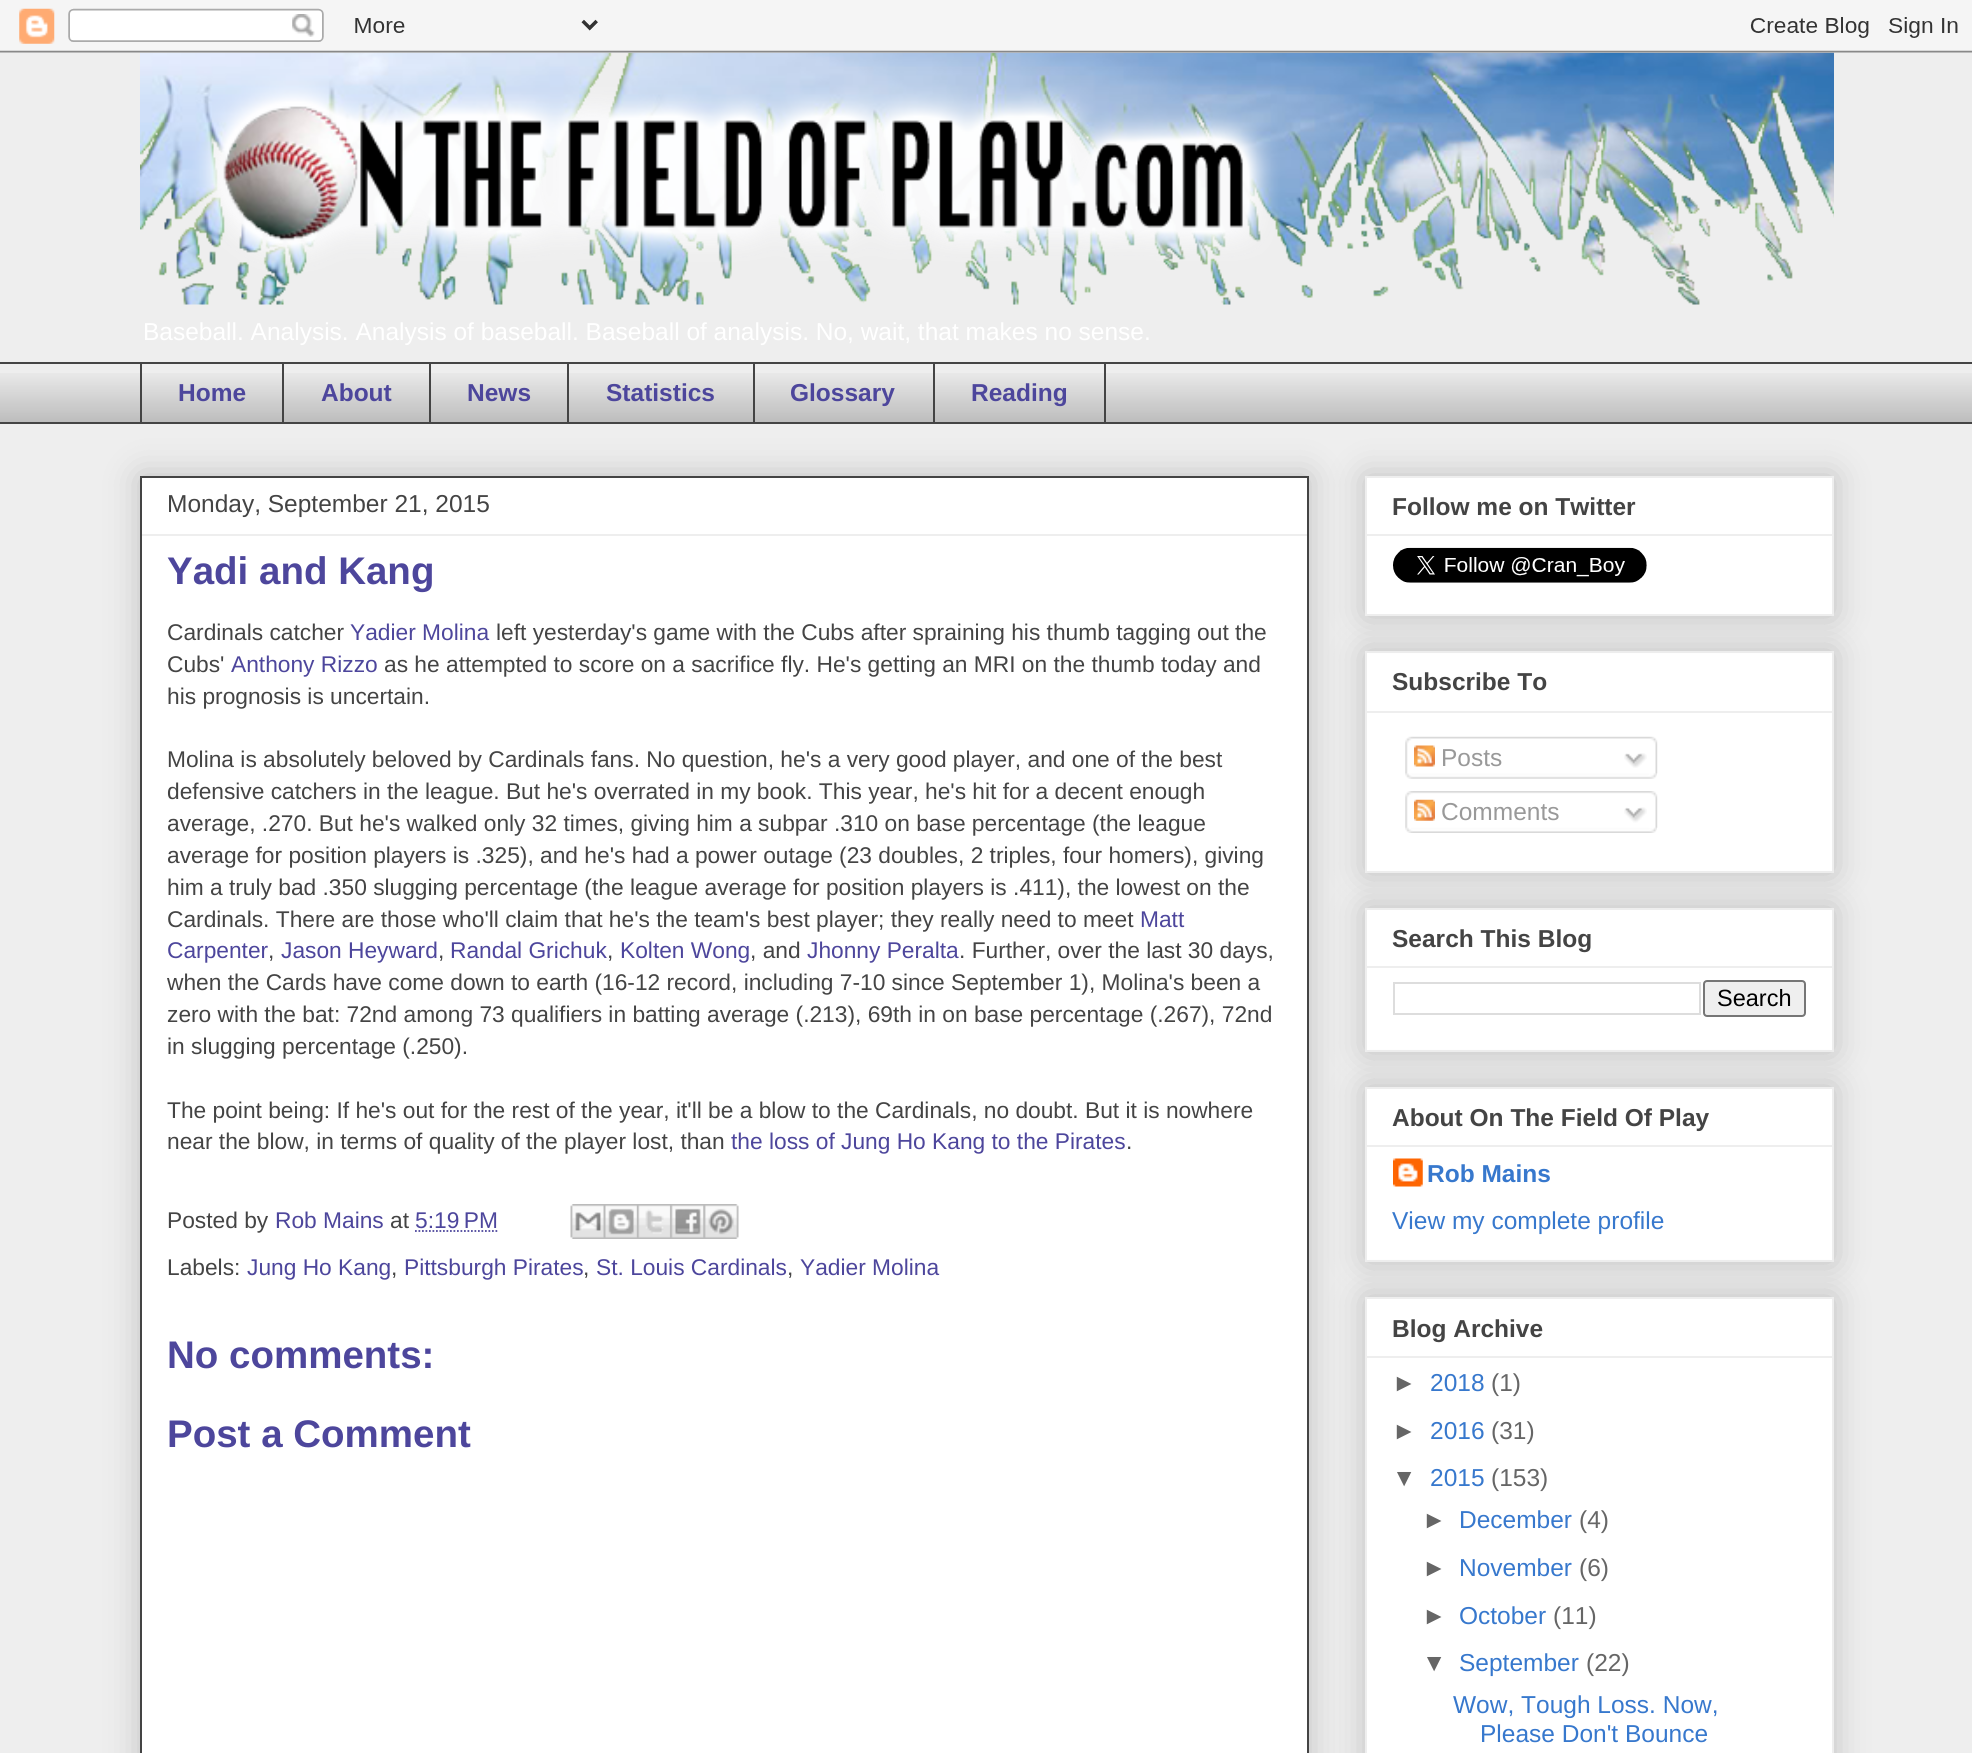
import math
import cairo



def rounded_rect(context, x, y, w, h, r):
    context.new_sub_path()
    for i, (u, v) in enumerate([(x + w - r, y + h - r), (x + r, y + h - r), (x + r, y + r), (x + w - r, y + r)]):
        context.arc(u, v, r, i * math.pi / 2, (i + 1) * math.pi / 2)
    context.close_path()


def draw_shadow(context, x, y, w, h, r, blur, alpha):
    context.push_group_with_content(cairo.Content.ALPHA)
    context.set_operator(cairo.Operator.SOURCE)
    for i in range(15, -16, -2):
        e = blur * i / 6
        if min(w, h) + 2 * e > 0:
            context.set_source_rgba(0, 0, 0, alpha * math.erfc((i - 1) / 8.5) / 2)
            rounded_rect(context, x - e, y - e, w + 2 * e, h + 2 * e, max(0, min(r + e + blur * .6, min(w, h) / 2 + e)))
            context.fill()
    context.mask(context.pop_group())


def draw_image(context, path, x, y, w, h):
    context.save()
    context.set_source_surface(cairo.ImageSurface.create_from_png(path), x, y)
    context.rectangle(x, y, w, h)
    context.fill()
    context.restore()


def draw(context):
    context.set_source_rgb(238 / 255, 238 / 255, 238 / 255)
    context.paint()
    draw_image(context, "images/2.png", 140, 52, 1694, 253)
    draw_image(context, "images/1.png", 0, 0, 1972, 53)
    draw_image(context, "images/3.png", 0, 373, 1972, 49)
    context.set_source_rgb(68 / 255, 68 / 255, 68 / 255)
    context.rectangle(0, 362, 1972, 2)
    context.fill()
    context.rectangle(140, 362, 2, 62)
    context.fill()
    context.rectangle(282, 362, 2, 62)
    context.fill()
    context.rectangle(429, 362, 2, 62)
    context.fill()
    context.rectangle(567, 362, 2, 62)
    context.fill()
    context.rectangle(753, 362, 2, 62)
    context.fill()
    context.rectangle(934, 363, 171, 60)
    context.stroke()
    context.rectangle(0, 422, 1972, 2)
    context.fill()
    context.set_source_rgb(0, 0, 0)
    draw_shadow(context, 140, 476, 1169, 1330, 0, 17.5, 0.2)
    context.set_source_rgb(1, 1, 1)
    context.rectangle(141, 477, 1167, 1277)
    context.fill_preserve()
    context.set_source_rgb(68 / 255, 68 / 255, 68 / 255)
    context.stroke()
    context.set_source_rgb(238 / 255, 238 / 255, 238 / 255)
    context.rectangle(142, 534, 1165, 2)
    context.fill()
    context.new_path()
    context.move_to(415, 1231)
    context.line_to(498, 1231)
    context.set_source_rgb(77 / 255, 70 / 255, 156 / 255)
    context.set_line_width(1.8)
    context.set_dash([1.75, 1.75])
    context.stroke()
    draw_image(context, "images/4.png", 570, 1204, 34, 35)
    draw_image(context, "images/5.png", 603, 1204, 34, 35)
    draw_image(context, "images/6.png", 637, 1204, 34, 35)
    draw_image(context, "images/7.png", 670, 1204, 34, 35)
    draw_image(context, "images/8.png", 703, 1204, 36, 35)
    context.set_source_rgb(0, 0, 0)
    draw_shadow(context, 1365, 651, 469, 222, 0, 17.5, 0.2)
    context.set_source_rgb(1, 1, 1)
    context.rectangle(1366, 652, 467, 220)
    context.fill_preserve()
    context.set_source_rgb(238 / 255, 238 / 255, 238 / 255)
    context.set_line_width(2)
    context.set_dash([])
    context.stroke()
    context.set_source_rgb(0, 0, 0)
    draw_shadow(context, 1365, 476, 469, 140, 0, 17.5, 0.2)
    context.set_source_rgb(1, 1, 1)
    context.rectangle(1366, 477, 467, 138)
    context.fill_preserve()
    context.set_source_rgb(238 / 255, 238 / 255, 238 / 255)
    context.stroke()
    context.rectangle(1367, 534, 465, 2)
    context.fill()
    draw_image(context, "images/9.png", 1393, 547, 254, 36)
    context.rectangle(1367, 711, 465, 2)
    context.fill()
    draw_image(context, "images/10.png", 1405, 736, 253, 38)
    draw_image(context, "images/11.png", 1414, 745, 21, 22)
    draw_image(context, "images/12.png", 1624, 753, 23, 15)
    draw_image(context, "images/13.png", 1405, 773, 252, 6)
    draw_image(context, "images/14.png", 1405, 791, 253, 37)
    draw_image(context, "images/15.png", 1414, 799, 21, 22)
    draw_image(context, "images/16.png", 1624, 807, 23, 16)
    draw_image(context, "images/17.png", 1405, 827, 252, 6)
    context.set_source_rgb(0, 0, 0)
    draw_shadow(context, 1365, 908, 469, 144, 0, 17.5, 0.2)
    context.set_source_rgb(1, 1, 1)
    context.rectangle(1366, 909, 467, 142)
    context.fill_preserve()
    context.set_source_rgb(238 / 255, 238 / 255, 238 / 255)
    context.stroke()
    context.rectangle(1367, 966, 465, 2)
    context.fill()
    context.rectangle(1394, 983, 306, 31)
    context.set_source_rgb(221 / 255, 221 / 255, 221 / 255)
    context.stroke()
    context.set_source_rgb(239 / 255, 239 / 255, 239 / 255)
    rounded_rect(context, 1704, 981, 101, 35, 3)
    context.fill_preserve()
    context.set_source_rgb(118 / 255, 118 / 255, 118 / 255)
    context.stroke()
    context.set_source_rgb(0, 0, 0)
    draw_shadow(context, 1365, 1087, 469, 175, 0, 17.5, 0.2)
    context.set_source_rgb(1, 1, 1)
    context.rectangle(1366, 1088, 467, 173)
    context.fill_preserve()
    context.set_source_rgb(238 / 255, 238 / 255, 238 / 255)
    context.stroke()
    context.rectangle(1367, 1145, 465, 2)
    context.fill()
    draw_image(context, "images/18.png", 1393, 1158, 30, 29)
    context.set_source_rgb(0, 0, 0)
    draw_shadow(context, 1365, 1297, 469, 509, 0, 17.5, 0.2)
    context.set_source_rgb(1, 1, 1)
    context.rectangle(1366, 1298, 467, 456)
    context.fill_preserve()
    context.set_source_rgb(238 / 255, 238 / 255, 238 / 255)
    context.stroke()
    context.rectangle(1367, 1356, 465, 2)
    context.fill()
    context.select_font_face("Liberation Sans")
    context.set_font_size(24.5)
    context.set_source_rgb(1, 1, 1)
    context.move_to(143, 340)
    context.show_text("Baseball. Analysis. Analysis of baseball. Baseball of analysis. No, wait, that makes no sense.")
    context.select_font_face("Liberation Sans", cairo.FontSlant.NORMAL, cairo.FontWeight.BOLD)
    context.set_source_rgb(77 / 255, 70 / 255, 156 / 255)
    context.move_to(178, 401)
    context.show_text("Home")
    context.move_to(321, 401)
    context.show_text("About")
    context.move_to(467, 401)
    context.show_text("News")
    context.move_to(606, 401)
    context.show_text("Statistics")
    context.move_to(790, 401)
    context.show_text("Glossary")
    context.move_to(971, 401)
    context.show_text("Reading")
    context.select_font_face("Liberation Sans")
    context.set_source_rgb(68 / 255, 68 / 255, 68 / 255)
    context.move_to(167, 512)
    context.show_text("Monday, September 21, 2015")
    context.select_font_face("Liberation Sans", cairo.FontSlant.NORMAL, cairo.FontWeight.BOLD)
    context.set_font_size(38.5)
    context.set_source_rgb(77 / 255, 70 / 255, 156 / 255)
    context.move_to(167, 584)
    context.show_text("Yadi and Kang")
    context.select_font_face("Liberation Sans")
    context.set_font_size(22.75)
    context.set_source_rgb(68 / 255, 68 / 255, 68 / 255)
    context.move_to(167, 640)
    context.show_text("Cardinals catcher")
    context.set_source_rgb(77 / 255, 70 / 255, 156 / 255)
    context.move_to(350, 640)
    context.show_text("Yadier Molina")
    context.set_source_rgb(68 / 255, 68 / 255, 68 / 255)
    context.move_to(496, 640)
    context.show_text("left yesterday's game with the Cubs after spraining his thumb tagging out the")
    context.move_to(167, 672)
    context.show_text("Cubs'")
    context.set_source_rgb(77 / 255, 70 / 255, 156 / 255)
    context.move_to(231, 672)
    context.show_text("Anthony Rizzo")
    context.set_source_rgb(68 / 255, 68 / 255, 68 / 255)
    context.move_to(384, 672)
    context.show_text("as he attempted to score on a sacrifice fly. He's getting an MRI on the thumb today and")
    context.move_to(167, 704)
    context.show_text("his prognosis is uncertain.")
    context.move_to(167, 767)
    context.show_text("Molina is absolutely beloved by Cardinals fans. No question, he's a very good player, and one of the best")
    context.move_to(167, 799)
    context.show_text("defensive catchers in the league. But he's overrated in my book. This year, he's hit for a decent enough")
    context.move_to(167, 831)
    context.show_text("average, .270. But he's walked only 32 times, giving him a subpar .310 on base percentage (the league")
    context.move_to(167, 863)
    context.show_text("average for position players is .325), and he's had a power outage (23 doubles, 2 triples, four homers), giving")
    context.move_to(167, 895)
    context.show_text("him a truly bad .350 slugging percentage (the league average for position players is .411), the lowest on the")
    context.move_to(167, 927)
    context.show_text("Cardinals. There are those who'll claim that he's the team's best player; they really need to meet")
    context.set_source_rgb(77 / 255, 70 / 255, 156 / 255)
    context.move_to(1140, 927)
    context.show_text("Matt")
    context.move_to(167, 958)
    context.show_text("Carpenter")
    context.set_source_rgb(68 / 255, 68 / 255, 68 / 255)
    context.move_to(268, 958)
    context.show_text(",")
    context.set_source_rgb(77 / 255, 70 / 255, 156 / 255)
    context.move_to(281, 958)
    context.show_text("Jason Heyward")
    context.set_source_rgb(68 / 255, 68 / 255, 68 / 255)
    context.move_to(438, 958)
    context.show_text(",")
    context.set_source_rgb(77 / 255, 70 / 255, 156 / 255)
    context.move_to(450, 958)
    context.show_text("Randal Grichuk")
    context.set_source_rgb(68 / 255, 68 / 255, 68 / 255)
    context.move_to(607, 958)
    context.show_text(",")
    context.set_source_rgb(77 / 255, 70 / 255, 156 / 255)
    context.move_to(620, 958)
    context.show_text("Kolten Wong")
    context.set_source_rgb(68 / 255, 68 / 255, 68 / 255)
    context.move_to(750, 958)
    context.show_text(", and")
    context.set_source_rgb(77 / 255, 70 / 255, 156 / 255)
    context.move_to(807, 958)
    context.show_text("Jhonny Peralta")
    context.set_source_rgb(68 / 255, 68 / 255, 68 / 255)
    context.move_to(959, 958)
    context.show_text(". Further, over the last 30 days,")
    context.move_to(167, 990)
    context.show_text("when the Cards have come down to earth (16-12 record, including 7-10 since September 1), Molina's been a")
    context.move_to(167, 1022)
    context.show_text("zero with the bat: 72nd among 73 qualifiers in batting average (.213), 69th in on base percentage (.267), 72nd")
    context.move_to(167, 1054)
    context.show_text("in slugging percentage (.250).")
    context.move_to(167, 1118)
    context.show_text("The point being: If he's out for the rest of the year, it'll be a blow to the Cardinals, no doubt. But it is nowhere")
    context.move_to(167, 1149)
    context.show_text("near the blow, in terms of quality of the player lost, than")
    context.set_source_rgb(77 / 255, 70 / 255, 156 / 255)
    context.move_to(731, 1149)
    context.show_text("the loss of Jung Ho Kang to the Pirates")
    context.set_source_rgb(68 / 255, 68 / 255, 68 / 255)
    context.move_to(1126, 1149)
    context.show_text(".")
    context.move_to(167, 1228)
    context.show_text("Posted by")
    context.set_source_rgb(77 / 255, 70 / 255, 156 / 255)
    context.move_to(275, 1228)
    context.show_text("Rob Mains")
    context.set_source_rgb(68 / 255, 68 / 255, 68 / 255)
    context.move_to(390, 1228)
    context.show_text("at")
    context.set_source_rgb(77 / 255, 70 / 255, 156 / 255)
    context.move_to(415, 1228)
    context.show_text("5:19 PM")
    context.set_source_rgb(68 / 255, 68 / 255, 68 / 255)
    context.move_to(167, 1275)
    context.show_text("Labels:")
    context.set_source_rgb(77 / 255, 70 / 255, 156 / 255)
    context.move_to(247, 1275)
    context.show_text("Jung Ho Kang")
    context.set_source_rgb(68 / 255, 68 / 255, 68 / 255)
    context.move_to(391, 1275)
    context.show_text(",")
    context.set_source_rgb(77 / 255, 70 / 255, 156 / 255)
    context.move_to(404, 1275)
    context.show_text("Pittsburgh Pirates")
    context.set_source_rgb(68 / 255, 68 / 255, 68 / 255)
    context.move_to(583, 1275)
    context.show_text(",")
    context.set_source_rgb(77 / 255, 70 / 255, 156 / 255)
    context.move_to(596, 1275)
    context.show_text("St. Louis Cardinals")
    context.set_source_rgb(68 / 255, 68 / 255, 68 / 255)
    context.move_to(787, 1275)
    context.show_text(",")
    context.set_source_rgb(77 / 255, 70 / 255, 156 / 255)
    context.move_to(800, 1275)
    context.show_text("Yadier Molina")
    context.select_font_face("Liberation Sans", cairo.FontSlant.NORMAL, cairo.FontWeight.BOLD)
    context.set_font_size(38.5)
    context.move_to(167, 1368)
    context.show_text("No comments:")
    context.move_to(167, 1447)
    context.show_text("Post a Comment")
    context.set_font_size(24.5)
    context.set_source_rgb(68 / 255, 68 / 255, 68 / 255)
    context.move_to(1392, 515)
    context.show_text("Follow me on Twitter")
    context.move_to(1392, 690)
    context.show_text("Subscribe To")
    context.select_font_face("Liberation Sans")
    context.set_source_rgb(153 / 255, 153 / 255, 153 / 255)
    context.move_to(1441, 766)
    context.show_text("Posts")
    context.move_to(1441, 820)
    context.show_text("Comments")
    context.select_font_face("Liberation Sans", cairo.FontSlant.NORMAL, cairo.FontWeight.BOLD)
    context.set_source_rgb(68 / 255, 68 / 255, 68 / 255)
    context.move_to(1392, 947)
    context.show_text("Search This Blog")
    context.select_font_face("Liberation Sans")
    context.set_font_size(23.5)
    context.set_source_rgb(0, 0, 0)
    context.move_to(1717, 1006)
    context.show_text("Search")
    context.select_font_face("Liberation Sans", cairo.FontSlant.NORMAL, cairo.FontWeight.BOLD)
    context.set_font_size(24.5)
    context.set_source_rgb(68 / 255, 68 / 255, 68 / 255)
    context.move_to(1392, 1126)
    context.show_text("About On The Field Of Play")
    context.set_source_rgb(55 / 255, 120 / 255, 205 / 255)
    context.move_to(1427, 1182)
    context.show_text("Rob Mains")
    context.select_font_face("Liberation Sans")
    context.move_to(1392, 1229)
    context.show_text("View my complete profile")
    context.select_font_face("Liberation Sans", cairo.FontSlant.NORMAL, cairo.FontWeight.BOLD)
    context.set_source_rgb(68 / 255, 68 / 255, 68 / 255)
    context.move_to(1392, 1337)
    context.show_text("Blog Archive")
    context.select_font_face("Liberation Sans")
    context.set_source_rgb(102 / 255, 102 / 255, 102 / 255)
    context.move_to(1392, 1391)
    context.show_text("►")
    context.set_source_rgb(55 / 255, 120 / 255, 205 / 255)
    context.move_to(1430, 1391)
    context.show_text("2018")
    context.set_source_rgb(102 / 255, 102 / 255, 102 / 255)
    context.move_to(1491, 1391)
    context.show_text("(1)")
    context.move_to(1392, 1439)
    context.show_text("►")
    context.set_source_rgb(55 / 255, 120 / 255, 205 / 255)
    context.move_to(1430, 1439)
    context.show_text("2016")
    context.set_source_rgb(102 / 255, 102 / 255, 102 / 255)
    context.move_to(1491, 1439)
    context.show_text("(31)")
    context.move_to(1392, 1486)
    context.show_text("▼")
    context.set_source_rgb(55 / 255, 120 / 255, 205 / 255)
    context.move_to(1430, 1486)
    context.show_text("2015")
    context.set_source_rgb(102 / 255, 102 / 255, 102 / 255)
    context.move_to(1491, 1486)
    context.show_text("(153)")
    context.move_to(1422, 1528)
    context.show_text("►")
    context.set_source_rgb(55 / 255, 120 / 255, 205 / 255)
    context.move_to(1459, 1528)
    context.show_text("December")
    context.set_source_rgb(102 / 255, 102 / 255, 102 / 255)
    context.move_to(1579, 1528)
    context.show_text("(4)")
    context.move_to(1422, 1576)
    context.show_text("►")
    context.set_source_rgb(55 / 255, 120 / 255, 205 / 255)
    context.move_to(1459, 1576)
    context.show_text("November")
    context.set_source_rgb(102 / 255, 102 / 255, 102 / 255)
    context.move_to(1579, 1576)
    context.show_text("(6)")
    context.move_to(1422, 1624)
    context.show_text("►")
    context.set_source_rgb(55 / 255, 120 / 255, 205 / 255)
    context.move_to(1459, 1624)
    context.show_text("October")
    context.set_source_rgb(102 / 255, 102 / 255, 102 / 255)
    context.move_to(1553, 1624)
    context.show_text("(11)")
    context.move_to(1422, 1671)
    context.show_text("▼")
    context.set_source_rgb(55 / 255, 120 / 255, 205 / 255)
    context.move_to(1459, 1671)
    context.show_text("September")
    context.set_source_rgb(102 / 255, 102 / 255, 102 / 255)
    context.move_to(1586, 1671)
    context.show_text("(22)")
    context.set_source_rgb(55 / 255, 120 / 255, 205 / 255)
    context.move_to(1453, 1713)
    context.show_text("Wow, Tough Loss. Now,")
    context.move_to(1480, 1742)
    context.show_text("Please Don't Bounce")


surface = cairo.ImageSurface(cairo.Format.RGB24, 1972, 1753)
context = cairo.Context(surface)
options = cairo.FontOptions()
options.set_hint_metrics(cairo.HintMetrics.OFF)
options.set_hint_style(cairo.HintStyle.NONE)
context.set_font_options(options)
context.set_miter_limit(4)
draw(context)
surface.write_to_png("out.png")
